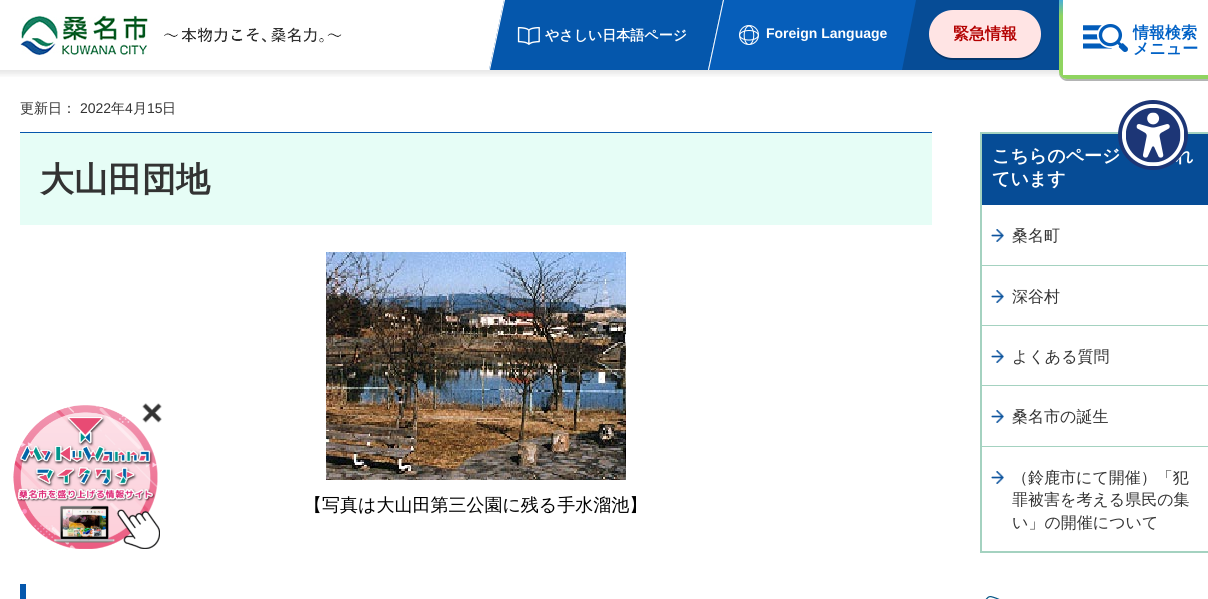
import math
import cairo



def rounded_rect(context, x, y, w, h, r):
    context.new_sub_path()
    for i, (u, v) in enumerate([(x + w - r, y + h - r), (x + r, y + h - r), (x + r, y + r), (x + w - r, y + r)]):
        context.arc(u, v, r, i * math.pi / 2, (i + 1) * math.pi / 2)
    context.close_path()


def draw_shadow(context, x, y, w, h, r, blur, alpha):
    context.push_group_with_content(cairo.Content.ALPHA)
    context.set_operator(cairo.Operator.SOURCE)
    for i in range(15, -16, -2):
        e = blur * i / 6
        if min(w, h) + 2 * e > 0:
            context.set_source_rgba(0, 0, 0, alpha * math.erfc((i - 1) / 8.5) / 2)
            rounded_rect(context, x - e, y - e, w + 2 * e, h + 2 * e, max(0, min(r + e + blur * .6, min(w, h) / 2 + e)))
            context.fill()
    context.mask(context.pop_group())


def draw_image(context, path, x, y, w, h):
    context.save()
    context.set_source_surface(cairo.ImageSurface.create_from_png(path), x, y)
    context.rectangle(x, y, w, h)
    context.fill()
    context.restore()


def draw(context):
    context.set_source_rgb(1, 1, 1)
    context.paint()
    context.save()
    context.rectangle(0, 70, 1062, 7)
    context.clip()
    context.set_source_rgb(0, 0, 0)
    draw_shadow(context, -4, -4, 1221, 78, 0, 3, 0.1)
    context.restore()
    draw_image(context, "images/1.png", 20, 15, 322, 41)
    context.set_source_rgb(5 / 255, 87 / 255, 172 / 255)
    context.new_path()
    context.move_to(504, 0)
    context.line_to(723, 0)
    context.line_to(708, 70)
    context.line_to(489, 70)
    context.close_path()
    context.fill()
    context.set_source_rgb(1, 1, 1)
    context.new_path()
    context.move_to(504, 0)
    context.line_to(505, 0)
    context.line_to(490, 70)
    context.line_to(489, 70)
    context.close_path()
    context.fill()
    draw_image(context, "images/2.png", 517, 26, 23, 19)
    context.set_source_rgb(6 / 255, 94 / 255, 186 / 255)
    context.new_path()
    context.move_to(723, 0)
    context.line_to(917, 0)
    context.line_to(903, 70)
    context.line_to(708, 70)
    context.close_path()
    context.fill()
    context.set_source_rgb(1, 1, 1)
    context.new_path()
    context.move_to(723, 0)
    context.line_to(724, 0)
    context.line_to(709, 70)
    context.line_to(708, 70)
    context.close_path()
    context.fill()
    draw_image(context, "images/3.png", 739, 25, 20, 20)
    context.set_source_rgb(6 / 255, 76 / 255, 150 / 255)
    context.new_path()
    context.move_to(916, 0)
    context.line_to(1076, 0)
    context.line_to(1062, 70)
    context.line_to(902, 70)
    context.close_path()
    context.fill()
    context.set_source_rgb(4 / 255, 54 / 255, 107 / 255)
    context.new_path()
    context.move_to(929, 33)
    context.line_to(929, 36)
    context.curve_to(929, 49, 940, 60, 953, 60)
    context.line_to(1017, 60)
    context.curve_to(1030, 60, 1040, 50, 1041, 37)
    context.curve_to(1039, 49, 1029, 58, 1017, 58)
    context.line_to(953, 58)
    context.curve_to(940, 58, 929, 47, 929, 34)
    context.close_path()
    context.fill()
    context.set_source_rgb(1, 228 / 255, 228 / 255)
    rounded_rect(context, 929, 10, 112, 48, 24)
    context.fill()
    context.set_source_rgba(0, 4 / 255, 6 / 255, 0.3)
    context.new_path()
    context.move_to(1059, 71)
    context.line_to(1059, 73)
    context.curve_to(1059, 77, 1063, 81, 1067, 81)
    context.line_to(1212, 81)
    context.curve_to(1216, 81, 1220, 77, 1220, 73)
    context.line_to(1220, 71)
    context.curve_to(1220, 75, 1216, 79, 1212, 79)
    context.line_to(1067, 79)
    context.curve_to(1063, 79, 1059, 75, 1059, 71)
    context.close_path()
    context.fill()
    gradient = cairo.LinearGradient(1140, 79, 1140, 0)
    gradient.add_color_stop_rgba(0.8, 143 / 255, 212 / 255, 96 / 255, 1)
    gradient.add_color_stop_rgba(1, 72 / 255, 174 / 255, 216 / 255, 1)
    context.set_source(gradient)
    context.new_path()
    context.move_to(1059, 0)
    context.line_to(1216, 0)
    context.line_to(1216, 71)
    context.curve_to(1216, 75.5, 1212.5, 79, 1208, 79)
    context.line_to(1067, 79)
    context.curve_to(1062.5, 79, 1059, 75.5, 1059, 71)
    context.close_path()
    context.fill()
    context.set_source_rgb(1, 1, 1)
    context.rectangle(1063, 0, 145, 75)
    context.fill()
    draw_image(context, "images/4.png", 1083, 24, 45, 28)
    context.set_source_rgb(230 / 255, 253 / 255, 246 / 255)
    context.rectangle(20, 133, 912, 92)
    context.fill()
    context.set_source_rgb(5 / 255, 87 / 255, 172 / 255)
    context.rectangle(20, 132, 912, 1)
    context.fill()
    draw_image(context, "images/5.png", 326, 252, 300, 228)
    context.rectangle(20, 584, 6, 15)
    context.fill()
    context.rectangle(981, 133, 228, 419)
    context.set_source_rgb(164 / 255, 210 / 255, 192 / 255)
    context.stroke()
    context.set_source_rgb(6 / 255, 76 / 255, 150 / 255)
    context.rectangle(982, 134, 226, 71)
    context.fill()
    context.set_source_rgb(164 / 255, 210 / 255, 192 / 255)
    context.rectangle(982, 265, 226, 1)
    context.fill()
    draw_image(context, "images/6.png", 991, 229, 13, 13)
    context.rectangle(982, 325, 226, 1)
    context.fill()
    draw_image(context, "images/6.png", 991, 290, 13, 13)
    context.rectangle(982, 385, 226, 1)
    context.fill()
    draw_image(context, "images/6.png", 991, 350, 13, 13)
    context.rectangle(982, 446, 226, 1)
    context.fill()
    draw_image(context, "images/6.png", 991, 410, 13, 13)
    draw_image(context, "images/6.png", 991, 471, 13, 13)
    draw_image(context, "images/7.png", 985, 596, 15, 3)
    draw_image(context, "images/10.png", 13, 405, 147, 144)
    draw_image(context, "images/9.png", 142, 403, 20, 20)
    context.select_font_face("WenQuanYi Zen Hei", cairo.FontSlant.NORMAL, cairo.FontWeight.BOLD)
    context.set_font_size(14)
    context.set_source_rgb(1, 1, 1)
    context.move_to(545, 40)
    context.show_text("やさしい日本語ページ")
    context.select_font_face("Liberation Sans", cairo.FontSlant.NORMAL, cairo.FontWeight.BOLD)
    context.move_to(766, 38)
    context.show_text("Foreign Language")
    context.select_font_face("WenQuanYi Zen Hei", cairo.FontSlant.NORMAL, cairo.FontWeight.BOLD)
    context.set_font_size(16)
    context.set_source_rgb(179 / 255, 0, 0)
    context.move_to(953, 39)
    context.show_text("緊急情報")
    context.set_source_rgb(0, 97 / 255, 198 / 255)
    context.move_to(1133, 38)
    context.show_text("情報検索")
    context.move_to(1133, 54)
    context.show_text("メニュー")
    context.select_font_face("WenQuanYi Zen Hei Medium")
    context.set_font_size(14)
    context.set_source_rgb(51 / 255, 51 / 255, 51 / 255)
    context.move_to(20, 113)
    context.show_text("更新日：")
    context.select_font_face("Liberation Sans")
    context.move_to(80, 113)
    context.show_text("2022")
    context.select_font_face("WenQuanYi Zen Hei Medium")
    context.move_to(111, 113)
    context.show_text("年")
    context.select_font_face("Liberation Sans")
    context.move_to(125, 113)
    context.show_text("4")
    context.select_font_face("WenQuanYi Zen Hei Medium")
    context.move_to(133, 113)
    context.show_text("月")
    context.select_font_face("Liberation Sans")
    context.move_to(147, 113)
    context.show_text("15")
    context.select_font_face("WenQuanYi Zen Hei Medium")
    context.move_to(162, 113)
    context.show_text("日")
    context.select_font_face("WenQuanYi Zen Hei", cairo.FontSlant.NORMAL, cairo.FontWeight.BOLD)
    context.set_font_size(34)
    context.move_to(40, 191)
    context.show_text("大山田団地")
    context.select_font_face("WenQuanYi Zen Hei Medium")
    context.set_font_size(18)
    context.set_source_rgb(0, 0, 0)
    context.move_to(304, 511)
    context.show_text("【写真は大山田第三公園に残る手水溜池】")
    context.select_font_face("WenQuanYi Zen Hei", cairo.FontSlant.NORMAL, cairo.FontWeight.BOLD)
    context.set_source_rgb(1, 1, 1)
    context.move_to(992, 162)
    context.show_text("こちらのページ")
    context.move_to(1175, 162)
    context.show_text("れ")
    context.move_to(992, 185)
    context.show_text("ています")
    context.select_font_face("WenQuanYi Zen Hei Medium")
    context.set_font_size(16)
    context.set_source_rgb(51 / 255, 51 / 255, 51 / 255)
    context.move_to(1012, 241)
    context.show_text("桑名町")
    context.move_to(1012, 302)
    context.show_text("深谷村")
    context.move_to(1012, 362)
    context.show_text("よくある質問")
    context.move_to(1012, 422)
    context.show_text("桑名市の誕生")
    context.move_to(1012, 483)
    context.show_text("（鈴鹿市にて開催）「犯")
    context.move_to(1012, 505)
    context.show_text("罪被害を考える県民の集")
    context.move_to(1012, 528)
    context.show_text("い」の開催について")
    draw_image(context, "images/8.png", 1118, 100, 70, 70)


surface = cairo.ImageSurface(cairo.Format.RGB24, 1208, 599)
context = cairo.Context(surface)
options = cairo.FontOptions()
options.set_hint_metrics(cairo.HintMetrics.OFF)
options.set_hint_style(cairo.HintStyle.NONE)
context.set_font_options(options)
context.set_miter_limit(4)
draw(context)
surface.write_to_png("out.png")
